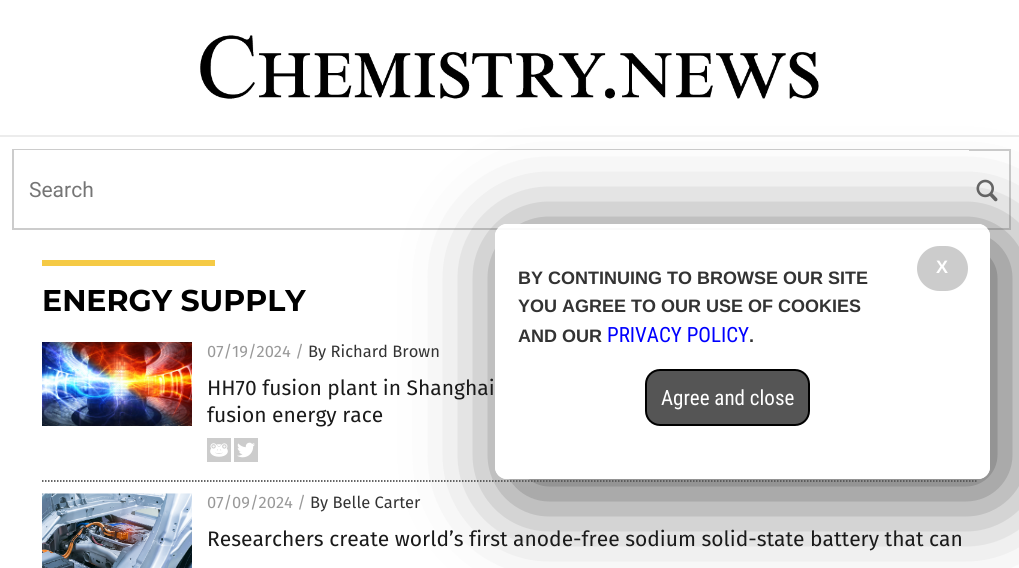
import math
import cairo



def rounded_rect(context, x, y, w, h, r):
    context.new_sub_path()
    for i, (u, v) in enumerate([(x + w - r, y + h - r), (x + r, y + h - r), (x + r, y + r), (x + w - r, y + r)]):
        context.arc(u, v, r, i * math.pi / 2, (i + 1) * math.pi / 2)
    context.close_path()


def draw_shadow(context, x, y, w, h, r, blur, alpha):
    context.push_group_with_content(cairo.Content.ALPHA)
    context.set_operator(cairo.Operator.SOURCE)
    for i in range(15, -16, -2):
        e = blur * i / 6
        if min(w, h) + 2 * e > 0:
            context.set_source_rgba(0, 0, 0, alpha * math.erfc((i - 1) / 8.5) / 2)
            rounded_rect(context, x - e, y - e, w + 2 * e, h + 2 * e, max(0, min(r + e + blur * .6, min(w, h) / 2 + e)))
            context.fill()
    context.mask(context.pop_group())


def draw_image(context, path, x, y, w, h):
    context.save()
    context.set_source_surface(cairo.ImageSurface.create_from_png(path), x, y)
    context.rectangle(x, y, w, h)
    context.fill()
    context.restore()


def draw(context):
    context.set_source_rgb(1, 1, 1)
    context.paint()
    draw_image(context, "images/1.png", 200, 35, 619, 64)
    context.set_source_rgb(236 / 255, 236 / 255, 236 / 255)
    context.rectangle(0, 135, 1019, 2)
    context.fill()
    context.rectangle(13, 150, 997, 79)
    context.set_source_rgb(204 / 255, 204 / 255, 204 / 255)
    context.stroke()
    context.set_source_rgb(1, 1, 1)
    context.rectangle(14, 150, 955, 1)
    context.fill()
    draw_image(context, "images/2.png", 976, 179, 22, 23)
    context.set_source_rgb(245 / 255, 202 / 255, 69 / 255)
    context.rectangle(42, 260, 173, 6)
    context.fill()
    context.new_path()
    context.move_to(42, 481)
    context.line_to(978, 481)
    context.set_source_rgb(52 / 255, 52 / 255, 52 / 255)
    context.set_line_width(1.5)
    context.set_dash([1.5, 1.5])
    context.stroke()
    draw_image(context, "images/3.png", 42, 342, 150, 84)
    draw_image(context, "images/4.png", 207, 438, 24, 24)
    draw_image(context, "images/5.png", 234, 438, 24, 24)
    draw_image(context, "images/6.png", 42, 493, 150, 75)
    context.save()
    context.set_fill_rule(cairo.FillRule.EVEN_ODD)
    context.new_path()
    context.move_to(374, 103)
    context.line_to(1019, 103)
    context.line_to(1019, 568)
    context.line_to(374, 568)
    context.close_path()
    context.move_to(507, 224)
    context.line_to(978, 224)
    context.curve_to(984.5, 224, 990, 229.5, 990, 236)
    context.line_to(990, 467)
    context.curve_to(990, 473.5, 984.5, 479, 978, 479)
    context.line_to(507, 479)
    context.curve_to(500.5, 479, 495, 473.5, 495, 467)
    context.line_to(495, 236)
    context.curve_to(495, 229.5, 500.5, 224, 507, 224)
    context.close_path()
    context.clip()
    context.set_source_rgb(85 / 255, 85 / 255, 85 / 255)
    draw_shadow(context, 510, 239, 495, 255, 12, 45, 1)
    context.restore()
    context.set_source_rgba(1, 1, 1, 0.9)
    rounded_rect(context, 495, 224, 495, 255, 12)
    context.fill()
    context.set_source_rgb(204 / 255, 204 / 255, 204 / 255)
    rounded_rect(context, 917, 246, 51, 45, 22.5)
    context.fill()
    context.set_source_rgb(85 / 255, 85 / 255, 85 / 255)
    rounded_rect(context, 646, 370, 163, 55, 14)
    context.fill_preserve()
    context.set_source_rgb(0, 0, 0)
    context.set_line_width(2)
    context.set_dash([])
    context.stroke()
    context.select_font_face("Roboto")
    context.set_font_size(21)
    context.set_source_rgb(117 / 255, 117 / 255, 117 / 255)
    context.move_to(29, 197)
    context.show_text("Search")
    context.select_font_face("Montserrat", cairo.FontSlant.NORMAL, cairo.FontWeight.BOLD)
    context.set_font_size(30)
    context.set_source_rgb(0, 0, 0)
    context.move_to(42, 311)
    context.show_text("ENERGY SUPPLY")
    context.select_font_face("Fira Sans")
    context.set_font_size(16.5)
    context.set_source_rgb(153 / 255, 153 / 255, 153 / 255)
    context.move_to(207, 357)
    context.show_text("07/19/2024 /")
    context.set_source_rgb(51 / 255, 51 / 255, 51 / 255)
    context.move_to(308, 357)
    context.show_text("By Richard Brown")
    context.set_font_size(21)
    context.set_source_rgb(26 / 255, 26 / 255, 26 / 255)
    context.move_to(207, 395)
    context.show_text("HH70 fusion plant in Shanghai")
    context.move_to(207, 422)
    context.show_text("fusion energy race")
    context.set_font_size(16.5)
    context.set_source_rgb(153 / 255, 153 / 255, 153 / 255)
    context.move_to(207, 508)
    context.show_text("07/09/2024 /")
    context.set_source_rgb(51 / 255, 51 / 255, 51 / 255)
    context.move_to(310, 508)
    context.show_text("By Belle Carter")
    context.set_font_size(21)
    context.set_source_rgb(26 / 255, 26 / 255, 26 / 255)
    context.move_to(207, 546)
    context.show_text("Researchers create world’s first anode-free sodium solid-state battery that can")
    context.select_font_face("Liberation Sans", cairo.FontSlant.NORMAL, cairo.FontWeight.BOLD)
    context.set_font_size(18)
    context.set_source_rgb(1, 1, 1)
    context.move_to(936, 273)
    context.show_text("X")
    context.set_source_rgb(51 / 255, 51 / 255, 51 / 255)
    context.move_to(518, 284)
    context.show_text("BY CONTINUING TO BROWSE OUR SITE")
    context.move_to(518, 312)
    context.show_text("YOU AGREE TO OUR USE OF COOKIES")
    context.move_to(518, 342)
    context.show_text("AND OUR")
    context.select_font_face("Roboto Condensed")
    context.set_font_size(21)
    context.set_source_rgb(0, 0, 1)
    context.move_to(607, 342)
    context.show_text("PRIVACY POLICY")
    context.select_font_face("Liberation Sans", cairo.FontSlant.NORMAL, cairo.FontWeight.BOLD)
    context.set_font_size(18)
    context.set_source_rgb(51 / 255, 51 / 255, 51 / 255)
    context.move_to(749, 342)
    context.show_text(".")
    context.select_font_face("Roboto Condensed")
    context.set_font_size(21)
    context.set_source_rgb(1, 1, 1)
    context.move_to(661, 405)
    context.show_text("Agree and close")


surface = cairo.ImageSurface(cairo.Format.RGB24, 1019, 568)
context = cairo.Context(surface)
options = cairo.FontOptions()
options.set_hint_metrics(cairo.HintMetrics.OFF)
options.set_hint_style(cairo.HintStyle.NONE)
context.set_font_options(options)
context.set_miter_limit(4)
draw(context)
surface.write_to_png("out.png")
